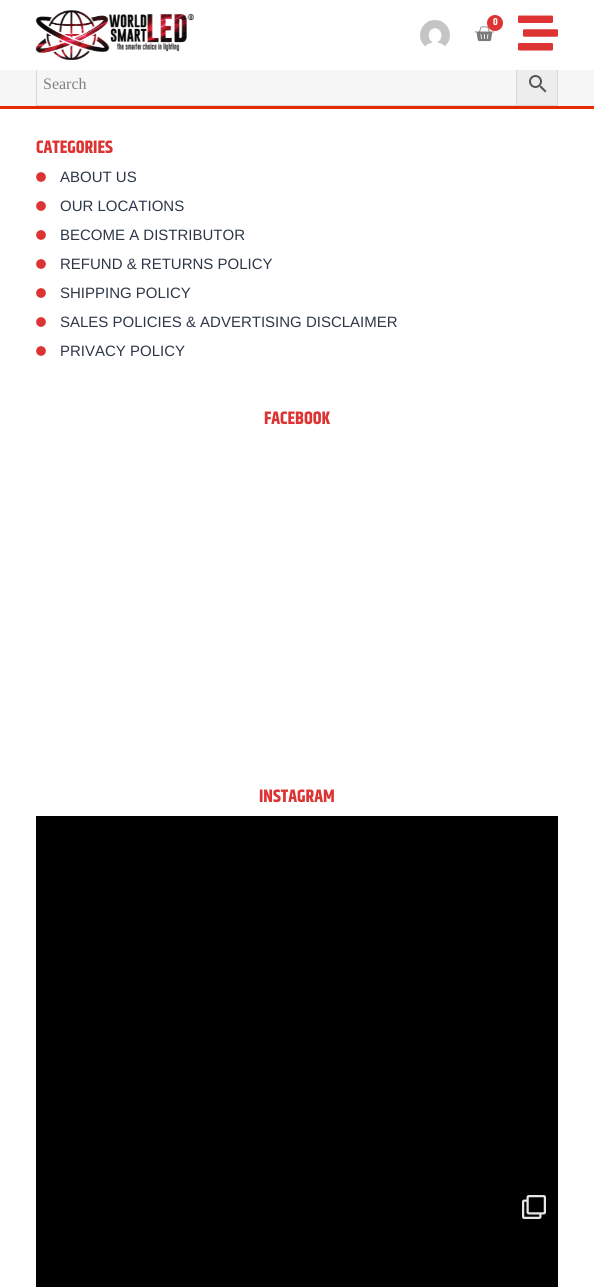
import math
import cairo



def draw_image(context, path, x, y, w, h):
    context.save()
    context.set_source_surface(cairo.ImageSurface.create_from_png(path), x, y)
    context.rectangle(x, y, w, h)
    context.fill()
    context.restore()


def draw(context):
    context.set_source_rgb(246 / 255, 246 / 255, 246 / 255)
    context.paint()
    context.set_source_rgb(237 / 255, 237 / 255, 237 / 255)
    context.rectangle(517, 70, 40, 35)
    context.fill()
    context.rectangle(516.5, 62.5, 41, 43)
    context.set_source_rgb(216 / 255, 216 / 255, 216 / 255)
    context.set_line_width(1)
    context.stroke()
    context.rectangle(36.5, 62.5, 480, 43)
    context.stroke()
    context.set_source_rgb(1, 1, 1)
    context.rectangle(0, 0, 594, 70)
    context.fill()
    draw_image(context, "images/1.png", 35, 10, 159, 50)
    draw_image(context, "images/2.png", 420, 20, 30, 27)
    draw_image(context, "images/3.png", 474, 26, 20, 16)
    context.set_source_rgb(221 / 255, 51 / 255, 51 / 255)
    context.arc(495, 23, 8, 0, 2 * math.pi)
    context.fill()
    draw_image(context, "images/4.png", 518, 15, 40, 36)
    draw_image(context, "images/5.png", 529, 75, 18, 18)
    context.set_source_rgb(1, 1, 1)
    context.rectangle(0, 109, 594, 1178)
    context.fill()
    context.set_source_rgb(232 / 255, 42 / 255, 0)
    context.rectangle(0, 106, 594, 3)
    context.fill()
    draw_image(context, "images/6.png", 36, 172, 10, 10)
    draw_image(context, "images/6.png", 36, 201, 10, 10)
    draw_image(context, "images/6.png", 36, 230, 10, 10)
    draw_image(context, "images/6.png", 36, 259, 10, 10)
    draw_image(context, "images/6.png", 36, 288, 10, 10)
    draw_image(context, "images/6.png", 36, 317, 10, 10)
    draw_image(context, "images/6.png", 36, 346, 10, 10)
    context.set_source_rgb(0, 0, 0)
    context.rectangle(36, 816, 522, 471)
    context.fill()
    draw_image(context, "images/7.png", 522, 1195, 24, 24)
    context.select_font_face("Khand", cairo.FontSlant.NORMAL, cairo.FontWeight.BOLD)
    context.set_font_size(10)
    context.set_source_rgb(246 / 255, 246 / 255, 246 / 255)
    context.move_to(493, 25)
    context.show_text("0")
    context.select_font_face("Liberation Serif")
    context.set_font_size(16)
    context.set_source_rgb(128 / 255, 128 / 255, 128 / 255)
    context.move_to(43, 89)
    context.show_text("Search")
    context.select_font_face("Khand", cairo.FontSlant.NORMAL, cairo.FontWeight.BOLD)
    context.set_font_size(18)
    context.set_source_rgb(221 / 255, 51 / 255, 51 / 255)
    context.move_to(36, 153)
    context.show_text("CATEGORIES")
    context.select_font_face("Liberation Sans")
    context.set_font_size(15)
    context.set_source_rgb(45 / 255, 55 / 255, 72 / 255)
    context.move_to(60, 182)
    context.show_text("ABOUT US")
    context.move_to(60, 211)
    context.show_text("OUR LOCATIONS")
    context.move_to(60, 240)
    context.show_text("BECOME A DISTRIBUTOR")
    context.move_to(60, 269)
    context.show_text("REFUND & RETURNS POLICY")
    context.move_to(60, 298)
    context.show_text("SHIPPING POLICY")
    context.move_to(60, 327)
    context.show_text("SALES POLICIES & ADVERTISING DISCLAIMER")
    context.move_to(60, 356)
    context.show_text("PRIVACY POLICY")
    context.select_font_face("Khand", cairo.FontSlant.NORMAL, cairo.FontWeight.BOLD)
    context.set_font_size(18)
    context.set_source_rgb(221 / 255, 51 / 255, 51 / 255)
    context.move_to(264, 424)
    context.show_text("FACEBOOK")
    context.move_to(259, 802)
    context.show_text("INSTAGRAM")


surface = cairo.ImageSurface(cairo.Format.RGB24, 594, 1287)
context = cairo.Context(surface)
options = cairo.FontOptions()
options.set_hint_metrics(cairo.HintMetrics.OFF)
options.set_hint_style(cairo.HintStyle.NONE)
context.set_font_options(options)
context.set_miter_limit(4)
draw(context)
surface.write_to_png("out.png")
